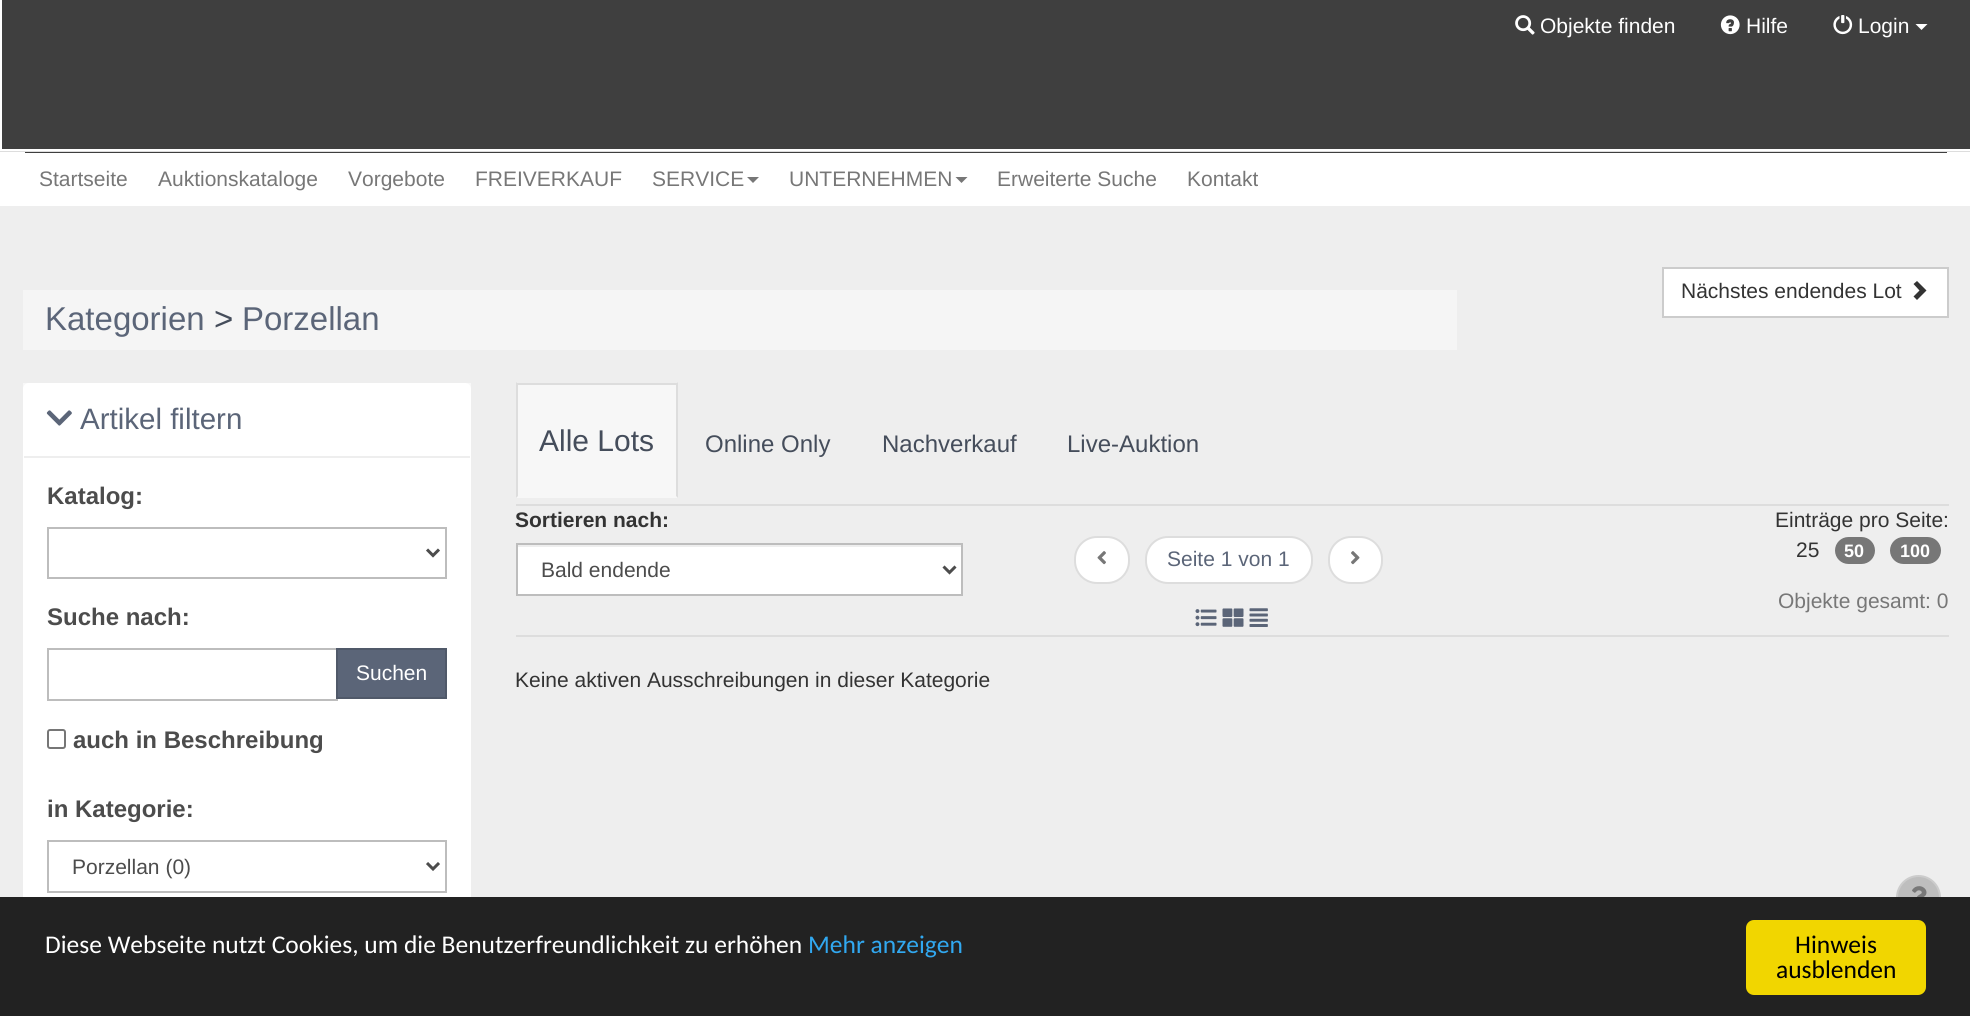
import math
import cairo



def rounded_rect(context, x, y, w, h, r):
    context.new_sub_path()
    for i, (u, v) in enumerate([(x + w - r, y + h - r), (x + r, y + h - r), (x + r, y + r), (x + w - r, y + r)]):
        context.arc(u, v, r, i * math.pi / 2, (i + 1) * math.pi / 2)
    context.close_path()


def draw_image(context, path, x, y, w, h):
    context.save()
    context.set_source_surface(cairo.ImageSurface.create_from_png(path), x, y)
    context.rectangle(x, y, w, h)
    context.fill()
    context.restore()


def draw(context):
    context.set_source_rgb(238 / 255, 238 / 255, 238 / 255)
    context.paint()
    context.set_source_rgb(63 / 255, 63 / 255, 63 / 255)
    context.rectangle(2, 0, 1968, 149)
    context.fill()
    context.set_source_rgb(1, 1, 1)
    context.rectangle(0, 149, 1970, 2)
    context.fill()
    context.rectangle(0, 0, 2, 150)
    context.fill()
    draw_image(context, "images/1.png", 1515, 15, 20, 20)
    draw_image(context, "images/2.png", 1720, 15, 20, 20)
    draw_image(context, "images/3.png", 1833, 15, 20, 20)
    context.new_path()
    context.move_to(1915.5, 24)
    context.line_to(1927.5, 24)
    context.line_to(1921.5, 30)
    context.close_path()
    context.fill()
    context.rectangle(0, 152, 1970, 54)
    context.fill()
    context.set_source_rgb(221 / 255, 221 / 255, 221 / 255)
    context.rectangle(0, 151, 1970, 1)
    context.fill()
    context.set_source_rgb(63 / 255, 63 / 255, 63 / 255)
    context.rectangle(25, 152, 1922, 1)
    context.fill()
    context.set_source_rgb(119 / 255, 119 / 255, 119 / 255)
    context.new_path()
    context.move_to(747, 177)
    context.line_to(759, 177)
    context.line_to(753, 183)
    context.close_path()
    context.fill()
    context.new_path()
    context.move_to(955.5, 177)
    context.line_to(967.5, 177)
    context.line_to(961.5, 183)
    context.close_path()
    context.fill()
    context.set_source_rgb(1, 1, 1)
    context.rectangle(1663, 268, 285, 49)
    context.fill_preserve()
    context.set_source_rgb(204 / 255, 204 / 255, 204 / 255)
    context.stroke()
    context.set_source_rgb(51 / 255, 51 / 255, 51 / 255)
    context.new_path()
    context.move_to(1926.5, 290.5)
    context.line_to(1917, 300)
    context.line_to(1913.5, 296.5)
    context.line_to(1919.5, 290.5)
    context.line_to(1913.5, 284)
    context.line_to(1917, 281)
    context.close_path()
    context.fill()
    context.set_source_rgb(245 / 255, 245 / 255, 245 / 255)
    context.rectangle(23, 290, 1434, 60)
    context.fill()
    context.set_source_rgb(248 / 255, 248 / 255, 248 / 255)
    context.rectangle(23, 383, 448, 6)
    context.fill()
    context.set_source_rgb(1, 1, 1)
    rounded_rect(context, 24, 384, 446, 626, 5)
    context.fill_preserve()
    context.stroke()
    context.set_source_rgb(238 / 255, 238 / 255, 238 / 255)
    context.rectangle(24, 456, 446, 2)
    context.fill()
    draw_image(context, "images/4.png", 46, 410, 26, 16)
    context.rectangle(48, 528, 398, 50)
    context.set_source_rgb(189 / 255, 189 / 255, 189 / 255)
    context.stroke()
    context.new_path()
    context.move_to(427, 549.5)
    context.line_to(433, 555.5)
    context.line_to(439, 549.5)
    context.set_source_rgb(76 / 255, 76 / 255, 76 / 255)
    context.set_line_width(3)
    context.stroke()
    context.rectangle(48, 649, 289, 51)
    context.set_source_rgb(189 / 255, 189 / 255, 189 / 255)
    context.set_line_width(2)
    context.stroke()
    context.set_source_rgb(91 / 255, 101 / 255, 120 / 255)
    context.rectangle(337, 649, 109, 49)
    context.fill_preserve()
    context.set_source_rgb(80 / 255, 89 / 255, 105 / 255)
    context.stroke()
    rounded_rect(context, 48, 730, 17, 18, 2)
    context.set_source_rgb(118 / 255, 118 / 255, 118 / 255)
    context.stroke()
    context.rectangle(48, 841, 398, 51)
    context.set_source_rgb(189 / 255, 189 / 255, 189 / 255)
    context.stroke()
    context.new_path()
    context.move_to(427, 863)
    context.line_to(433, 869)
    context.line_to(439, 863)
    context.set_source_rgb(76 / 255, 76 / 255, 76 / 255)
    context.set_line_width(3)
    context.stroke()
    context.set_source_rgb(221 / 255, 221 / 255, 221 / 255)
    context.rectangle(516, 635, 1433, 2)
    context.fill()
    context.rectangle(516, 504, 1433, 2)
    context.fill()
    context.set_source_rgb(247 / 255, 247 / 255, 247 / 255)
    context.rectangle(516, 385, 162, 113)
    context.fill()
    context.set_source_rgb(221 / 255, 221 / 255, 221 / 255)
    context.rectangle(516, 383, 162, 2)
    context.fill()
    context.new_path()
    context.move_to(678, 382)
    context.line_to(678, 498)
    context.line_to(676, 496)
    context.line_to(676, 384)
    context.close_path()
    context.fill()
    context.new_path()
    context.move_to(516, 498)
    context.line_to(516, 382)
    context.line_to(518, 384)
    context.line_to(518, 496)
    context.close_path()
    context.fill()
    context.set_source_rgb(1, 1, 1)
    context.rectangle(518, 547, 443, 47)
    context.fill()
    context.rectangle(517, 544, 445, 51)
    context.set_source_rgb(189 / 255, 189 / 255, 189 / 255)
    context.set_line_width(2)
    context.stroke()
    context.new_path()
    context.move_to(943.5, 566.5)
    context.line_to(949.5, 572.5)
    context.line_to(955.5, 566.5)
    context.set_source_rgb(76 / 255, 76 / 255, 76 / 255)
    context.set_line_width(3)
    context.stroke()
    context.set_source_rgb(1, 1, 1)
    rounded_rect(context, 1075, 537, 54, 46, 22)
    context.fill_preserve()
    context.set_source_rgb(221 / 255, 221 / 255, 221 / 255)
    context.set_line_width(2)
    context.stroke()
    draw_image(context, "images/5.png", 1097, 551, 9, 14)
    context.set_source_rgb(1, 1, 1)
    rounded_rect(context, 1146, 537, 166, 46, 22)
    context.fill_preserve()
    context.set_source_rgb(221 / 255, 221 / 255, 221 / 255)
    context.stroke()
    context.set_source_rgb(1, 1, 1)
    rounded_rect(context, 1329, 537, 53, 46, 22)
    context.fill_preserve()
    context.set_source_rgb(221 / 255, 221 / 255, 221 / 255)
    context.stroke()
    draw_image(context, "images/6.png", 1351, 551, 9, 14)
    draw_image(context, "images/7.png", 1195, 609, 22, 18)
    draw_image(context, "images/8.png", 1222, 608, 22, 19)
    draw_image(context, "images/9.png", 1249, 608, 19, 19)
    context.set_source_rgb(119 / 255, 119 / 255, 119 / 255)
    rounded_rect(context, 1835, 537, 40, 27, 13.5)
    context.fill()
    rounded_rect(context, 1890, 537, 51, 27, 13.5)
    context.fill()
    context.set_source_rgb(190 / 255, 190 / 255, 190 / 255)
    context.arc(1918.5, 897.5, 21.5, 0, 2 * math.pi)
    context.fill_preserve()
    context.set_source_rgb(204 / 255, 204 / 255, 204 / 255)
    context.stroke()
    draw_image(context, "images/10.png", 1912, 886, 15, 11)
    context.set_source_rgb(34 / 255, 34 / 255, 34 / 255)
    context.rectangle(0, 897, 1970, 119)
    context.fill()
    context.set_source_rgb(241 / 255, 214 / 255, 0)
    rounded_rect(context, 1746, 920, 180, 75, 8)
    context.fill()
    context.select_font_face("Liberation Sans")
    context.set_font_size(21)
    context.set_source_rgb(1, 1, 1)
    context.move_to(1540, 33)
    context.show_text("Objekte finden")
    context.move_to(1746, 33)
    context.show_text("Hilfe")
    context.move_to(1858, 33)
    context.show_text("Login")
    context.set_source_rgb(119 / 255, 119 / 255, 119 / 255)
    context.move_to(39, 186)
    context.show_text("Startseite")
    context.move_to(158, 186)
    context.show_text("Auktionskataloge")
    context.move_to(348, 186)
    context.show_text("Vorgebote")
    context.move_to(475, 186)
    context.show_text("FREIVERKAUF")
    context.move_to(652, 186)
    context.show_text("SERVICE")
    context.move_to(789, 186)
    context.show_text("UNTERNEHMEN")
    context.move_to(997, 186)
    context.show_text("Erweiterte Suche")
    context.move_to(1187, 186)
    context.show_text("Kontakt")
    context.set_source_rgb(51 / 255, 51 / 255, 51 / 255)
    context.move_to(1681, 298)
    context.show_text("Nächstes endendes Lot")
    context.set_font_size(33)
    context.set_source_rgb(91 / 255, 101 / 255, 120 / 255)
    context.move_to(45, 330)
    context.show_text("Kategorien")
    context.set_source_rgb(69 / 255, 77 / 255, 91 / 255)
    context.move_to(214, 330)
    context.show_text(">")
    context.set_source_rgb(91 / 255, 101 / 255, 120 / 255)
    context.move_to(242, 330)
    context.show_text("Porzellan")
    context.set_font_size(29.5)
    context.move_to(80, 429)
    context.show_text("Artikel filtern")
    context.select_font_face("Liberation Sans", cairo.FontSlant.NORMAL, cairo.FontWeight.BOLD)
    context.set_font_size(24)
    context.set_source_rgb(76 / 255, 76 / 255, 76 / 255)
    context.move_to(47, 504)
    context.show_text("Katalog:")
    context.move_to(47, 625)
    context.show_text("Suche nach:")
    context.select_font_face("Liberation Sans")
    context.set_font_size(21)
    context.set_source_rgb(1, 1, 1)
    context.move_to(356, 680)
    context.show_text("Suchen")
    context.select_font_face("Liberation Sans", cairo.FontSlant.NORMAL, cairo.FontWeight.BOLD)
    context.set_font_size(24)
    context.set_source_rgb(76 / 255, 76 / 255, 76 / 255)
    context.move_to(73, 748)
    context.show_text("auch in Beschreibung")
    context.move_to(47, 817)
    context.show_text("in Kategorie:")
    context.select_font_face("Liberation Sans")
    context.set_font_size(21)
    context.move_to(72, 874)
    context.show_text("Porzellan (0)")
    context.set_font_size(30)
    context.set_source_rgb(69 / 255, 77 / 255, 91 / 255)
    context.move_to(539, 451)
    context.show_text("Alle Lots")
    context.set_font_size(24)
    context.move_to(705, 452)
    context.show_text("Online Only")
    context.move_to(882, 452)
    context.show_text("Nachverkauf")
    context.move_to(1067, 452)
    context.show_text("Live-Auktion")
    context.select_font_face("Liberation Sans", cairo.FontSlant.NORMAL, cairo.FontWeight.BOLD)
    context.set_font_size(21)
    context.set_source_rgb(51 / 255, 51 / 255, 51 / 255)
    context.move_to(515, 527)
    context.show_text("Sortieren nach:")
    context.select_font_face("Liberation Sans")
    context.set_source_rgb(76 / 255, 76 / 255, 76 / 255)
    context.move_to(541, 577)
    context.show_text("Bald endende")
    context.set_source_rgb(91 / 255, 101 / 255, 120 / 255)
    context.move_to(1167, 566)
    context.show_text("Seite 1 von 1")
    context.set_source_rgb(51 / 255, 51 / 255, 51 / 255)
    context.move_to(1775, 527)
    context.show_text("Einträge pro Seite:")
    context.move_to(1796, 557)
    context.show_text("25")
    context.select_font_face("Liberation Sans", cairo.FontSlant.NORMAL, cairo.FontWeight.BOLD)
    context.set_font_size(18)
    context.set_source_rgb(1, 1, 1)
    context.move_to(1844, 557)
    context.show_text("50")
    context.move_to(1900, 557)
    context.show_text("100")
    context.select_font_face("Liberation Sans")
    context.set_font_size(21)
    context.set_source_rgb(119 / 255, 119 / 255, 119 / 255)
    context.move_to(1778, 608)
    context.show_text("Objekte gesamt: 0")
    context.set_source_rgb(51 / 255, 51 / 255, 51 / 255)
    context.move_to(515, 687)
    context.show_text("Keine aktiven Ausschreibungen in dieser Kategorie")
    context.select_font_face("Carlito")
    context.set_font_size(25.5)
    context.set_source_rgb(1, 1, 1)
    context.move_to(45, 953)
    context.show_text("Diese Webseite nutzt Cookies, um die Benutzerfreundlichkeit zu erhöhen")
    context.set_source_rgb(49 / 255, 168 / 255, 240 / 255)
    context.move_to(808, 953)
    context.show_text("Mehr anzeigen")
    context.set_source_rgb(0, 0, 0)
    context.move_to(1795, 953)
    context.show_text("Hinweis")
    context.move_to(1776, 978)
    context.show_text("ausblenden")


surface = cairo.ImageSurface(cairo.Format.RGB24, 1970, 1016)
context = cairo.Context(surface)
options = cairo.FontOptions()
options.set_hint_metrics(cairo.HintMetrics.OFF)
options.set_hint_style(cairo.HintStyle.NONE)
context.set_font_options(options)
context.set_miter_limit(4)
draw(context)
surface.write_to_png("out.png")
